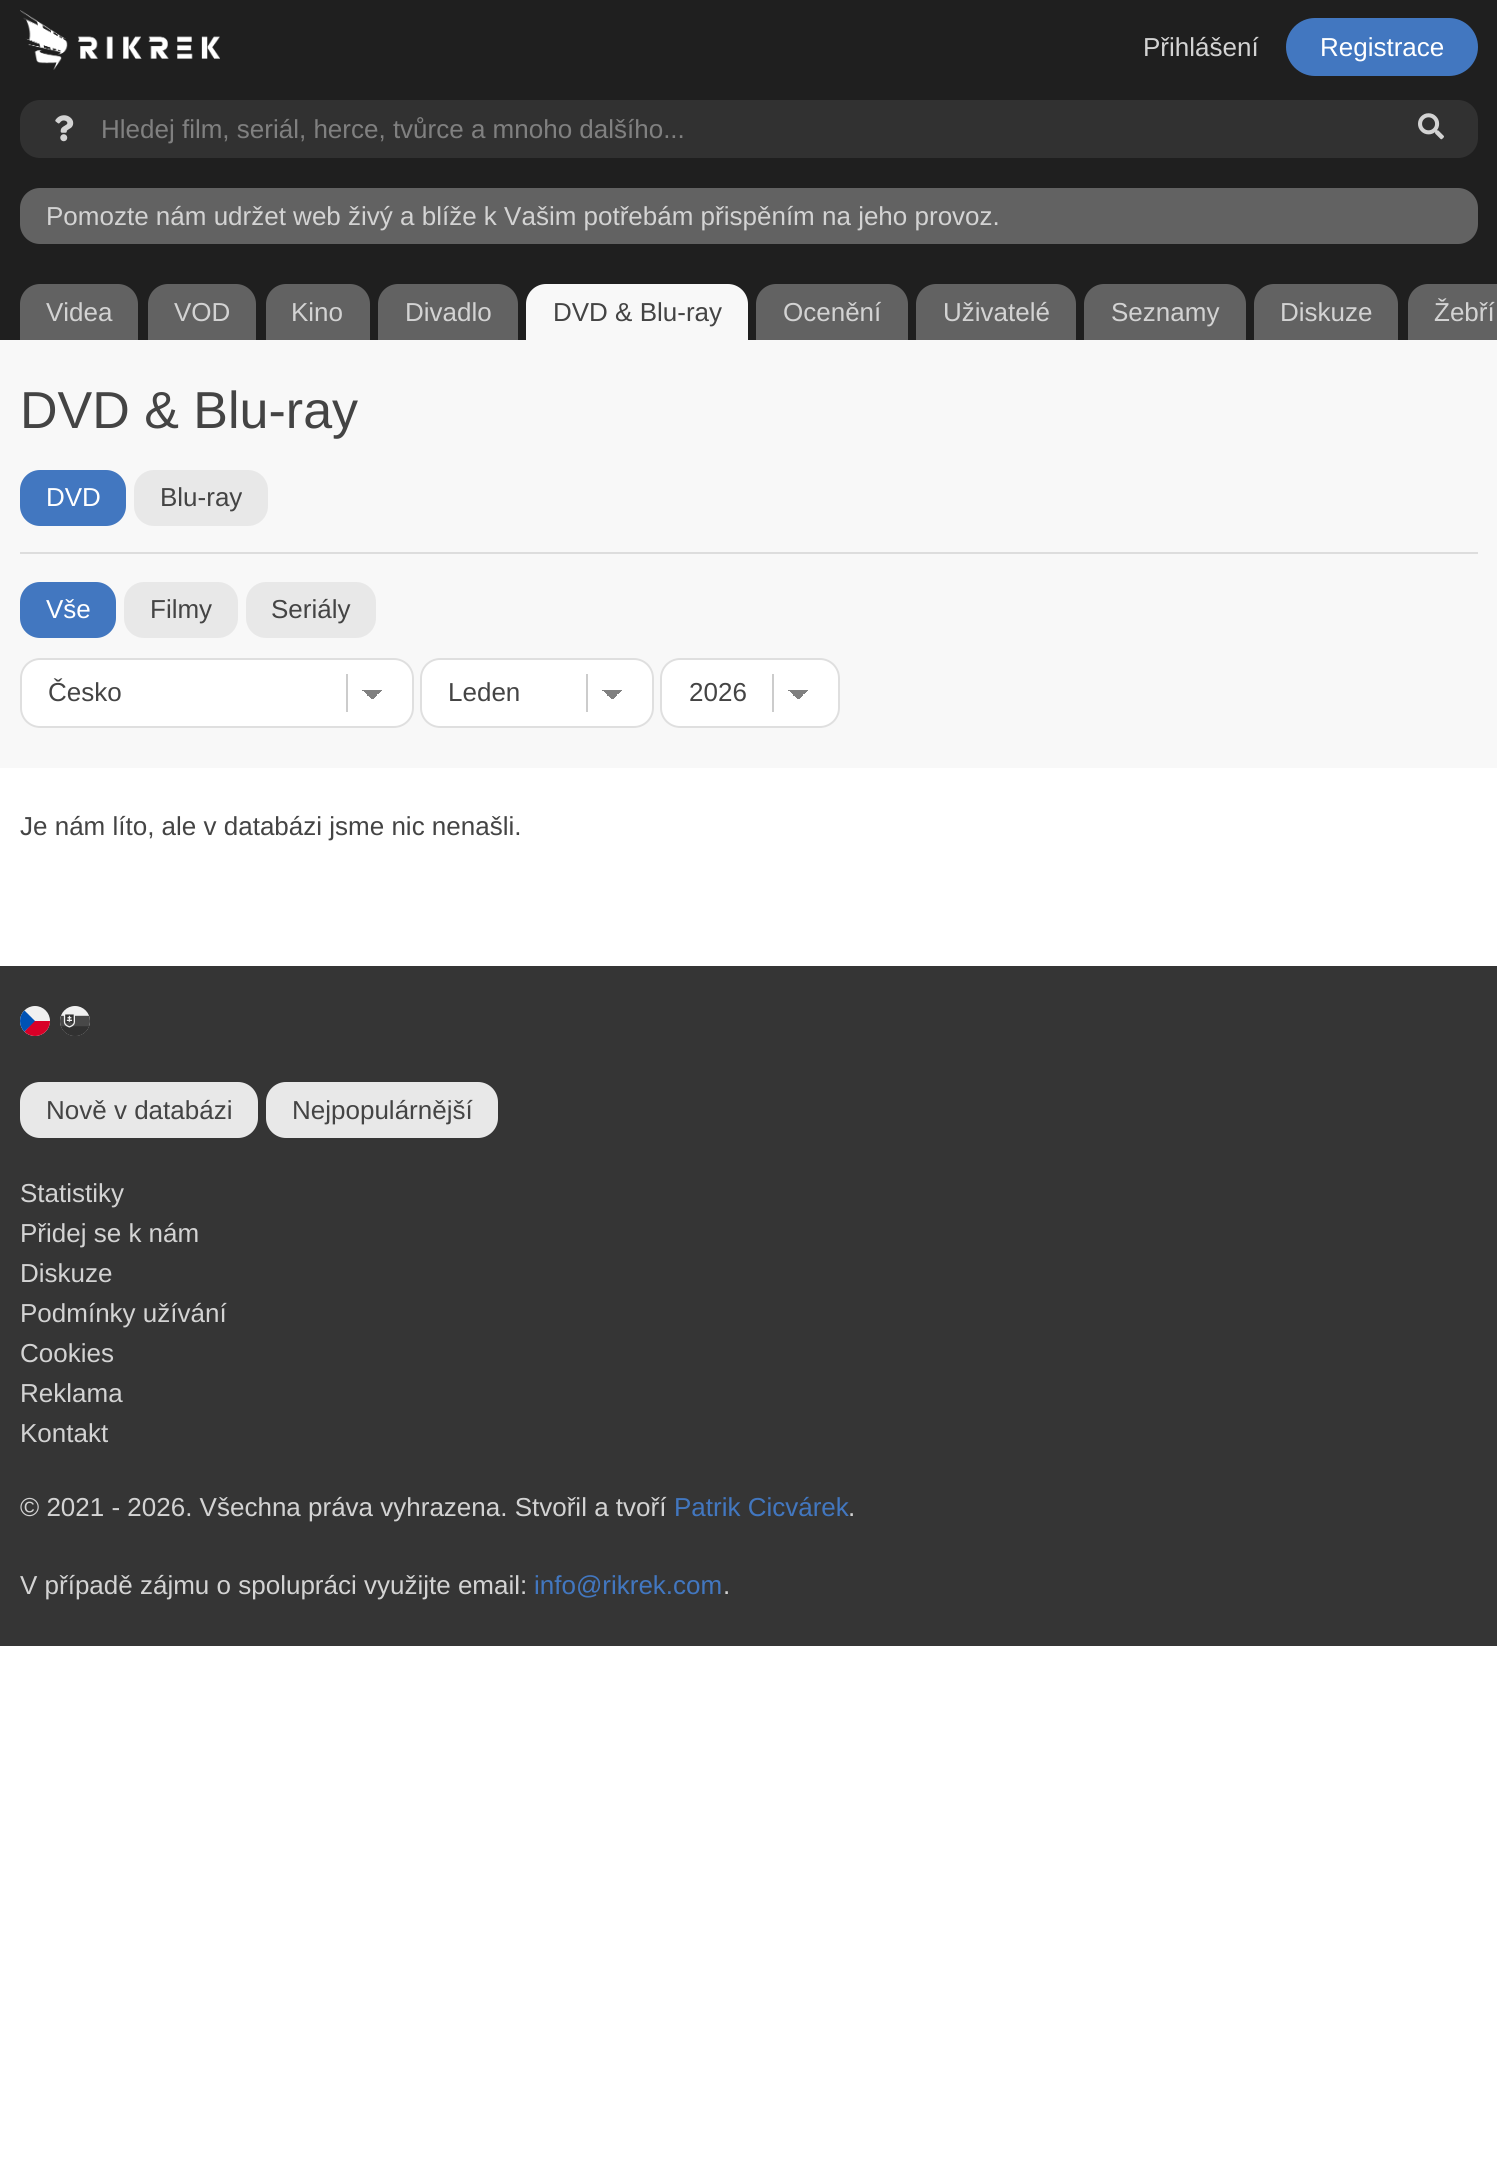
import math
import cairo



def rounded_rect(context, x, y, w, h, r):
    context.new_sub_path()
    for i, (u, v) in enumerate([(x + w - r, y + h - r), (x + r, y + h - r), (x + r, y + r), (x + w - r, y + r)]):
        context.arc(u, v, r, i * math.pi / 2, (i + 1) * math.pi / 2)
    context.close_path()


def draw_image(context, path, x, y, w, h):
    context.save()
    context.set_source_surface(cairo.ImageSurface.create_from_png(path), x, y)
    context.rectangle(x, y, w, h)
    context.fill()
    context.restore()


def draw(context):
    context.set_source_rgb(1, 1, 1)
    context.paint()
    context.set_source_rgb(31 / 255, 31 / 255, 31 / 255)
    context.rectangle(0, 0, 1497, 340)
    context.fill()
    draw_image(context, "images/1.png", 20, 10, 200, 60)
    context.set_source_rgb(66 / 255, 119 / 255, 192 / 255)
    rounded_rect(context, 1286, 18, 192, 58, 29)
    context.fill()
    context.set_source_rgb(49 / 255, 49 / 255, 49 / 255)
    rounded_rect(context, 20, 100, 1458, 58, 20)
    context.fill()
    draw_image(context, "images/2.png", 55, 115, 19, 27)
    draw_image(context, "images/3.png", 1418, 113, 26, 27)
    context.set_source_rgb(98 / 255, 98 / 255, 98 / 255)
    rounded_rect(context, 20, 188, 1458, 56, 20)
    context.fill()
    context.new_path()
    context.move_to(40, 284)
    context.line_to(118, 284)
    context.curve_to(129, 284, 138, 293, 138, 304)
    context.line_to(138, 340)
    context.line_to(20, 340)
    context.line_to(20, 304)
    context.curve_to(20, 293, 29, 284, 40, 284)
    context.close_path()
    context.fill()
    context.new_path()
    context.move_to(168, 284)
    context.line_to(236, 284)
    context.curve_to(247, 284, 256, 293, 256, 304)
    context.line_to(256, 340)
    context.line_to(148, 340)
    context.line_to(148, 304)
    context.curve_to(148, 293, 157, 284, 168, 284)
    context.close_path()
    context.fill()
    context.new_path()
    context.move_to(286, 284)
    context.line_to(350, 284)
    context.curve_to(361, 284, 370, 293, 370, 304)
    context.line_to(370, 340)
    context.line_to(266, 340)
    context.line_to(266, 304)
    context.curve_to(266, 293, 275, 284, 286, 284)
    context.close_path()
    context.fill()
    context.new_path()
    context.move_to(398, 284)
    context.line_to(498, 284)
    context.curve_to(509, 284, 518, 293, 518, 304)
    context.line_to(518, 340)
    context.line_to(378, 340)
    context.line_to(378, 304)
    context.curve_to(378, 293, 387, 284, 398, 284)
    context.close_path()
    context.fill()
    context.set_source_rgb(248 / 255, 248 / 255, 248 / 255)
    context.new_path()
    context.move_to(546, 284)
    context.line_to(728, 284)
    context.curve_to(739, 284, 748, 293, 748, 304)
    context.line_to(748, 340)
    context.line_to(526, 340)
    context.line_to(526, 304)
    context.curve_to(526, 293, 535, 284, 546, 284)
    context.close_path()
    context.fill()
    context.set_source_rgb(98 / 255, 98 / 255, 98 / 255)
    context.new_path()
    context.move_to(776, 284)
    context.line_to(888, 284)
    context.curve_to(899, 284, 908, 293, 908, 304)
    context.line_to(908, 340)
    context.line_to(756, 340)
    context.line_to(756, 304)
    context.curve_to(756, 293, 765, 284, 776, 284)
    context.close_path()
    context.fill()
    context.new_path()
    context.move_to(936, 284)
    context.line_to(1056, 284)
    context.curve_to(1067, 284, 1076, 293, 1076, 304)
    context.line_to(1076, 340)
    context.line_to(916, 340)
    context.line_to(916, 304)
    context.curve_to(916, 293, 925, 284, 936, 284)
    context.close_path()
    context.fill()
    context.new_path()
    context.move_to(1104, 284)
    context.line_to(1226, 284)
    context.curve_to(1237, 284, 1246, 293, 1246, 304)
    context.line_to(1246, 340)
    context.line_to(1084, 340)
    context.line_to(1084, 304)
    context.curve_to(1084, 293, 1093, 284, 1104, 284)
    context.close_path()
    context.fill()
    context.new_path()
    context.move_to(1274, 284)
    context.line_to(1378, 284)
    context.curve_to(1389, 284, 1398, 293, 1398, 304)
    context.line_to(1398, 340)
    context.line_to(1254, 340)
    context.line_to(1254, 304)
    context.curve_to(1254, 293, 1263, 284, 1274, 284)
    context.close_path()
    context.fill()
    context.new_path()
    context.move_to(1428, 284)
    context.line_to(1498, 284)
    context.line_to(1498, 340)
    context.line_to(1408, 340)
    context.line_to(1408, 304)
    context.curve_to(1408, 293, 1417, 284, 1428, 284)
    context.close_path()
    context.fill()
    context.set_source_rgb(248 / 255, 248 / 255, 248 / 255)
    context.rectangle(0, 340, 1497, 428)
    context.fill()
    context.set_source_rgb(66 / 255, 119 / 255, 192 / 255)
    rounded_rect(context, 20, 470, 106, 56, 20)
    context.fill()
    context.set_source_rgb(232 / 255, 232 / 255, 232 / 255)
    rounded_rect(context, 134, 470, 134, 56, 20)
    context.fill()
    context.set_source_rgb(221 / 255, 221 / 255, 221 / 255)
    context.rectangle(20, 552, 1458, 2)
    context.fill()
    context.set_source_rgb(66 / 255, 119 / 255, 192 / 255)
    rounded_rect(context, 20, 582, 96, 56, 20)
    context.fill()
    context.set_source_rgb(232 / 255, 232 / 255, 232 / 255)
    rounded_rect(context, 124, 582, 114, 56, 20)
    context.fill()
    rounded_rect(context, 246, 582, 130, 56, 20)
    context.fill()
    context.set_source_rgb(1, 1, 1)
    rounded_rect(context, 20, 658, 394, 70, 20)
    context.fill()
    context.set_source_rgb(204 / 255, 204 / 255, 204 / 255)
    context.rectangle(346, 674, 2, 38)
    context.fill()
    gradient = cairo.LinearGradient(372, 690, 382, 700)
    gradient.add_color_stop_rgba(0.5, 128 / 255, 128 / 255, 128 / 255, 1)
    gradient.add_color_stop_rgba(0.5, 1, 1, 1, 1)
    context.set_source(gradient)
    context.rectangle(372, 690, 10, 9)
    context.fill()
    gradient = cairo.LinearGradient(362, 700, 372, 690)
    gradient.add_color_stop_rgba(0.5, 1, 1, 1, 1)
    gradient.add_color_stop_rgba(0.5, 128 / 255, 128 / 255, 128 / 255, 1)
    context.set_source(gradient)
    context.rectangle(362, 690, 10, 9)
    context.fill()
    rounded_rect(context, 21, 659, 392, 68, 19)
    context.set_source_rgb(223 / 255, 223 / 255, 223 / 255)
    context.stroke()
    context.set_source_rgb(1, 1, 1)
    rounded_rect(context, 420, 658, 234, 70, 20)
    context.fill()
    context.set_source_rgb(204 / 255, 204 / 255, 204 / 255)
    context.rectangle(586, 674, 2, 38)
    context.fill()
    gradient = cairo.LinearGradient(612, 690, 622, 700)
    gradient.add_color_stop_rgba(0.5, 128 / 255, 128 / 255, 128 / 255, 1)
    gradient.add_color_stop_rgba(0.5, 1, 1, 1, 1)
    context.set_source(gradient)
    context.rectangle(612, 690, 10, 9)
    context.fill()
    gradient = cairo.LinearGradient(602, 700, 612, 690)
    gradient.add_color_stop_rgba(0.5, 1, 1, 1, 1)
    gradient.add_color_stop_rgba(0.5, 128 / 255, 128 / 255, 128 / 255, 1)
    context.set_source(gradient)
    context.rectangle(602, 690, 10, 9)
    context.fill()
    rounded_rect(context, 421, 659, 232, 68, 19)
    context.set_source_rgb(223 / 255, 223 / 255, 223 / 255)
    context.stroke()
    context.set_source_rgb(1, 1, 1)
    rounded_rect(context, 660, 658, 180, 70, 20)
    context.fill()
    context.set_source_rgb(204 / 255, 204 / 255, 204 / 255)
    context.rectangle(772, 674, 2, 38)
    context.fill()
    gradient = cairo.LinearGradient(798, 690, 808, 700)
    gradient.add_color_stop_rgba(0.5, 128 / 255, 128 / 255, 128 / 255, 1)
    gradient.add_color_stop_rgba(0.5, 1, 1, 1, 1)
    context.set_source(gradient)
    context.rectangle(798, 690, 10, 9)
    context.fill()
    gradient = cairo.LinearGradient(788, 700, 798, 690)
    gradient.add_color_stop_rgba(0.5, 1, 1, 1, 1)
    gradient.add_color_stop_rgba(0.5, 128 / 255, 128 / 255, 128 / 255, 1)
    context.set_source(gradient)
    context.rectangle(788, 690, 10, 9)
    context.fill()
    rounded_rect(context, 661, 659, 178, 68, 19)
    context.set_source_rgb(223 / 255, 223 / 255, 223 / 255)
    context.stroke()
    context.set_source_rgb(53 / 255, 53 / 255, 53 / 255)
    context.rectangle(0, 966, 1497, 680)
    context.fill()
    draw_image(context, "images/4.png", 20, 1006, 30, 30)
    draw_image(context, "images/5.png", 60, 1006, 30, 30)
    context.set_source_rgb(232 / 255, 232 / 255, 232 / 255)
    rounded_rect(context, 20, 1082, 238, 56, 20)
    context.fill()
    rounded_rect(context, 266, 1082, 232, 56, 20)
    context.fill()
    context.select_font_face("Liberation Sans")
    context.set_font_size(26)
    context.set_source_rgb(211 / 255, 211 / 255, 211 / 255)
    context.move_to(1143, 56)
    context.show_text("Přihlášení")
    context.set_source_rgb(1, 1, 1)
    context.move_to(1320, 56)
    context.show_text("Registrace")
    context.set_source_rgb(128 / 255, 128 / 255, 128 / 255)
    context.move_to(101, 138)
    context.show_text("Hledej film, seriál, herce, tvůrce a mnoho dalšího...")
    context.set_source_rgb(211 / 255, 211 / 255, 211 / 255)
    context.move_to(46, 225)
    context.show_text("Pomozte nám udržet web živý a blíže k Vašim potřebám přispěním na jeho provoz.")
    context.move_to(46, 321)
    context.show_text("Videa")
    context.move_to(174, 321)
    context.show_text("VOD")
    context.move_to(291, 321)
    context.show_text("Kino")
    context.move_to(405, 321)
    context.show_text("Divadlo")
    context.set_source_rgb(68 / 255, 68 / 255, 68 / 255)
    context.move_to(553, 321)
    context.show_text("DVD & Blu-ray")
    context.set_source_rgb(211 / 255, 211 / 255, 211 / 255)
    context.move_to(783, 321)
    context.show_text("Ocenění")
    context.move_to(943, 321)
    context.show_text("Uživatelé")
    context.move_to(1111, 321)
    context.show_text("Seznamy")
    context.move_to(1280, 321)
    context.show_text("Diskuze")
    context.move_to(1434, 321)
    context.show_text("Žebří")
    context.set_font_size(52)
    context.set_source_rgb(68 / 255, 68 / 255, 68 / 255)
    context.move_to(20, 428)
    context.show_text("DVD & Blu-ray")
    context.set_font_size(26)
    context.set_source_rgb(1, 1, 1)
    context.move_to(46, 506)
    context.show_text("DVD")
    context.set_source_rgb(68 / 255, 68 / 255, 68 / 255)
    context.move_to(160, 506)
    context.show_text("Blu-ray")
    context.set_source_rgb(1, 1, 1)
    context.move_to(46, 618)
    context.show_text("Vše")
    context.set_source_rgb(68 / 255, 68 / 255, 68 / 255)
    context.move_to(150, 618)
    context.show_text("Filmy")
    context.move_to(271, 618)
    context.show_text("Seriály")
    context.move_to(48, 701)
    context.show_text("Česko")
    context.move_to(448, 701)
    context.show_text("Leden")
    context.move_to(689, 701)
    context.show_text("2026")
    context.move_to(20, 835)
    context.show_text("Je nám líto, ale v databázi jsme nic nenašli.")
    context.move_to(46, 1119)
    context.show_text("Nově v databázi")
    context.move_to(292, 1119)
    context.show_text("Nejpopulárnější")
    context.set_source_rgb(211 / 255, 211 / 255, 211 / 255)
    context.move_to(20, 1202)
    context.show_text("Statistiky")
    context.move_to(20, 1242)
    context.show_text("Přidej se k nám")
    context.move_to(20, 1282)
    context.show_text("Diskuze")
    context.move_to(20, 1322)
    context.show_text("Podmínky užívání")
    context.move_to(20, 1362)
    context.show_text("Cookies")
    context.move_to(20, 1402)
    context.show_text("Reklama")
    context.move_to(20, 1442)
    context.show_text("Kontakt")
    context.move_to(20, 1516)
    context.show_text("© 2021 - 2026. Všechna práva vyhrazena. Stvořil a tvoří")
    context.set_source_rgb(66 / 255, 119 / 255, 192 / 255)
    context.move_to(674, 1516)
    context.show_text("Patrik Cicvárek")
    context.set_source_rgb(211 / 255, 211 / 255, 211 / 255)
    context.move_to(848, 1516)
    context.show_text(".")
    context.move_to(20, 1594)
    context.show_text("V případě zájmu o spolupráci využijte email:")
    context.set_source_rgb(66 / 255, 119 / 255, 192 / 255)
    context.move_to(534, 1594)
    context.show_text("info@rikrek.com")
    context.set_source_rgb(211 / 255, 211 / 255, 211 / 255)
    context.move_to(723, 1594)
    context.show_text(".")


surface = cairo.ImageSurface(cairo.Format.RGB24, 1497, 2171)
context = cairo.Context(surface)
options = cairo.FontOptions()
options.set_hint_metrics(cairo.HintMetrics.OFF)
options.set_hint_style(cairo.HintStyle.NONE)
context.set_font_options(options)
context.set_miter_limit(4)
draw(context)
surface.write_to_png("out.png")
